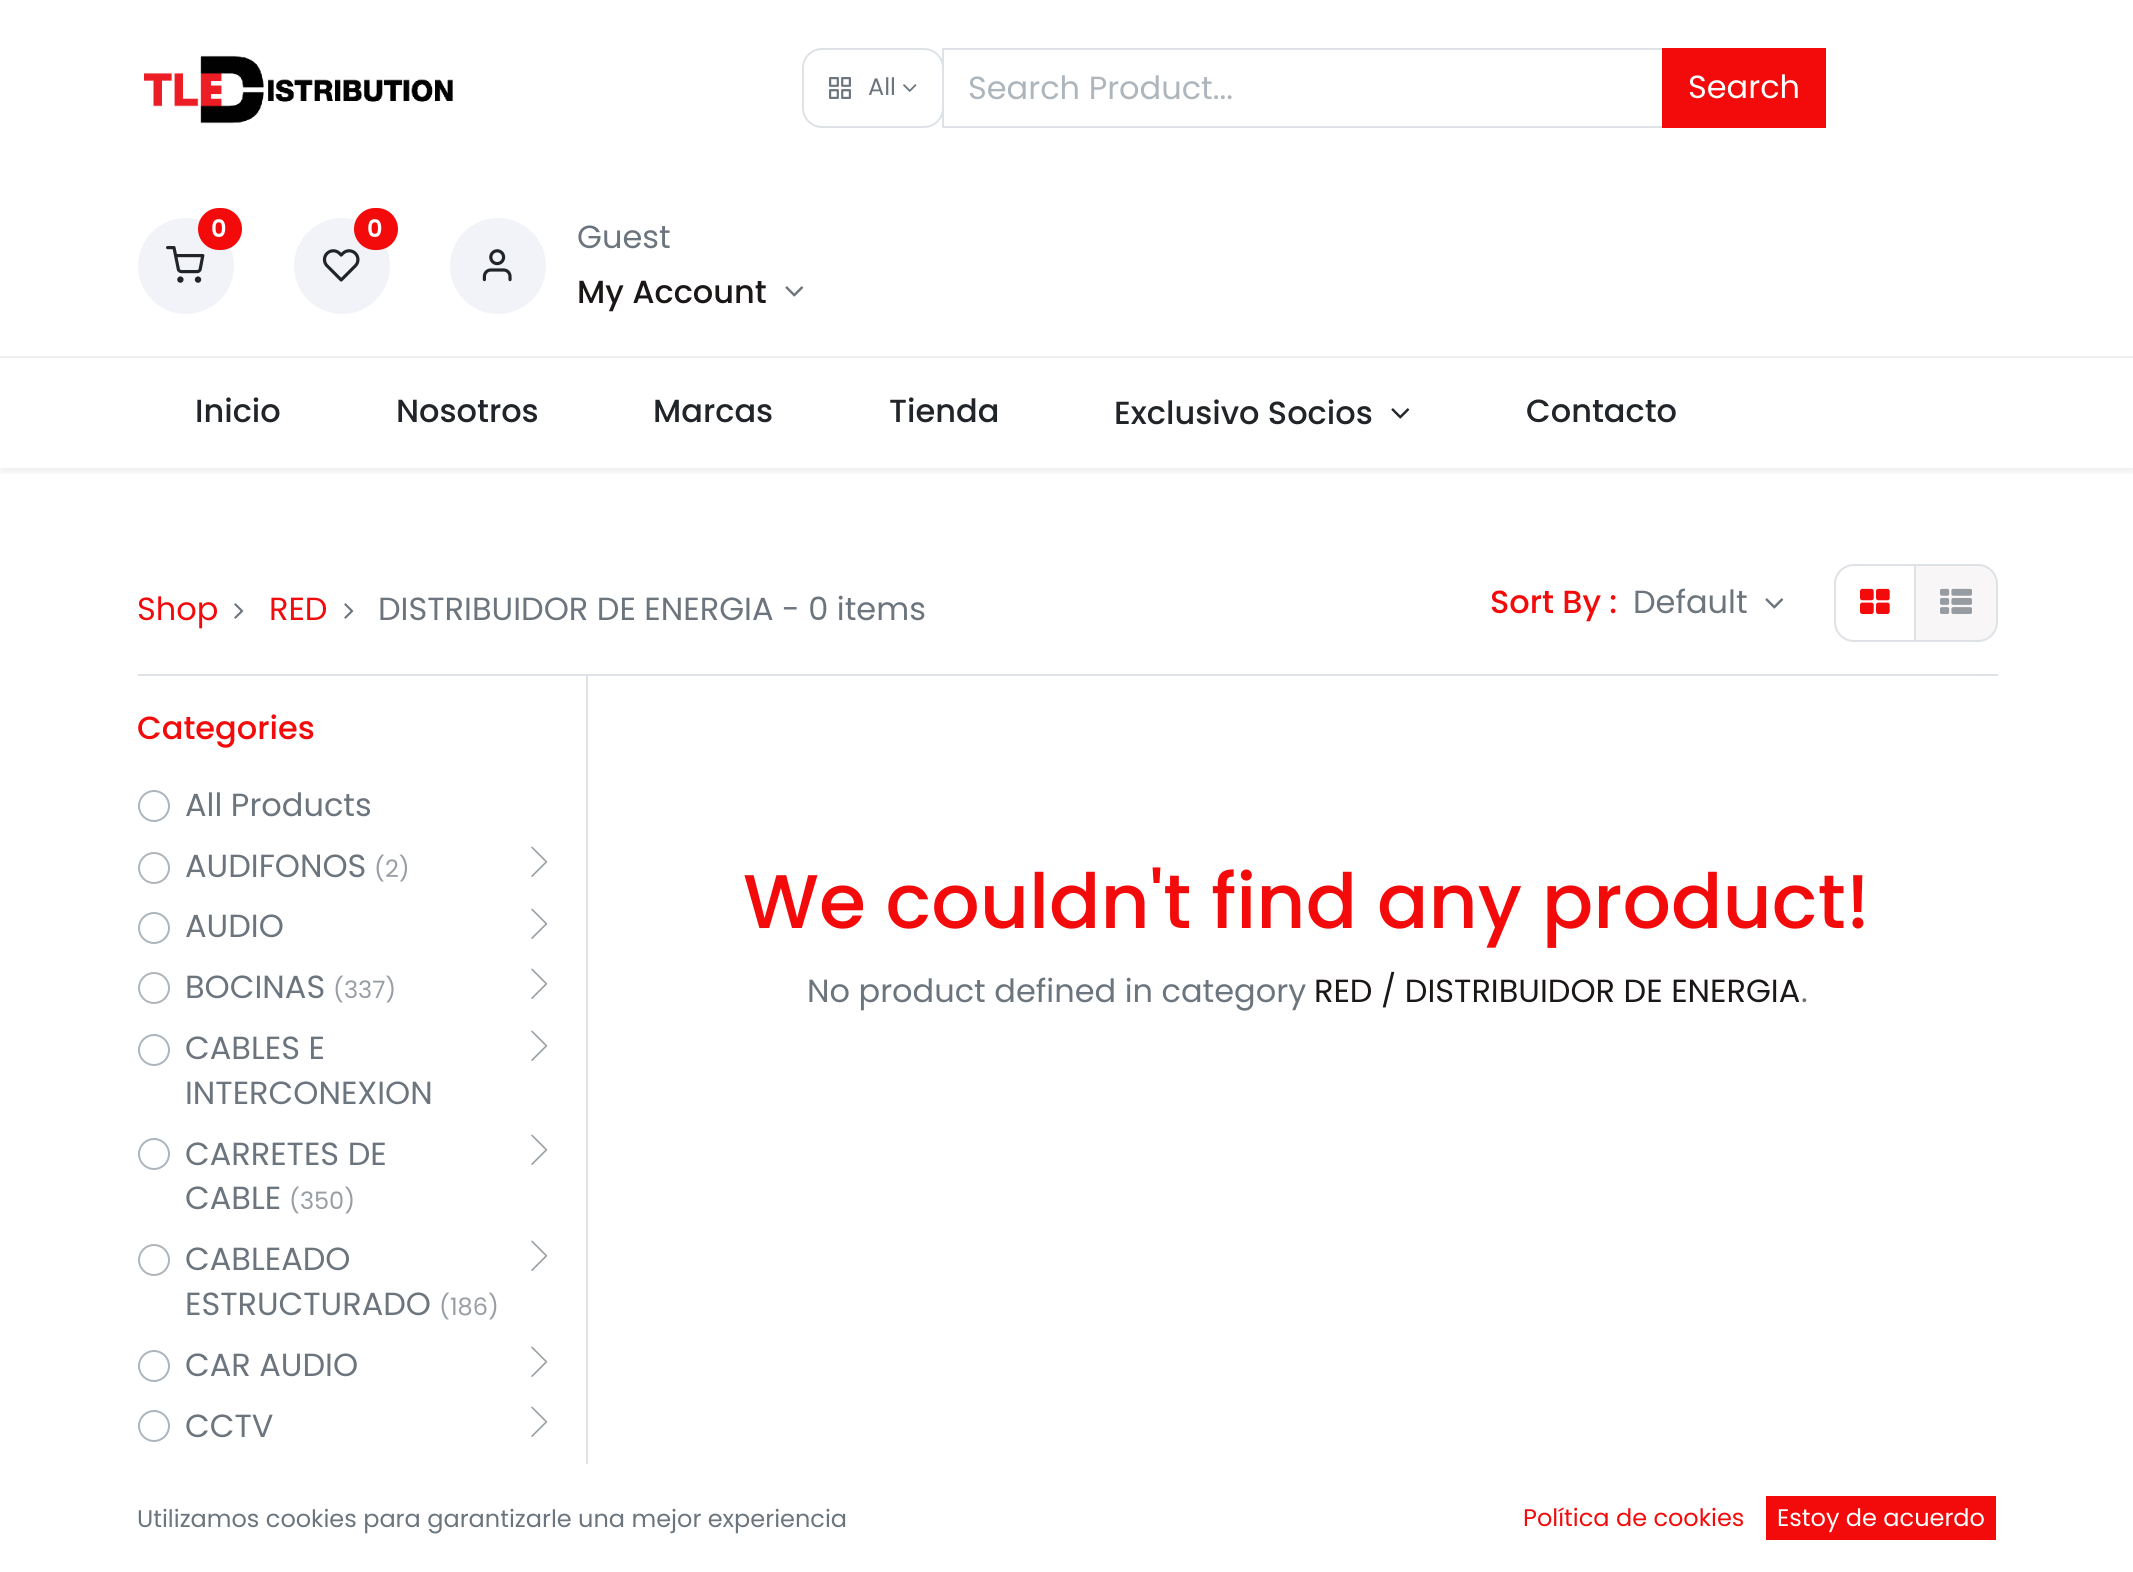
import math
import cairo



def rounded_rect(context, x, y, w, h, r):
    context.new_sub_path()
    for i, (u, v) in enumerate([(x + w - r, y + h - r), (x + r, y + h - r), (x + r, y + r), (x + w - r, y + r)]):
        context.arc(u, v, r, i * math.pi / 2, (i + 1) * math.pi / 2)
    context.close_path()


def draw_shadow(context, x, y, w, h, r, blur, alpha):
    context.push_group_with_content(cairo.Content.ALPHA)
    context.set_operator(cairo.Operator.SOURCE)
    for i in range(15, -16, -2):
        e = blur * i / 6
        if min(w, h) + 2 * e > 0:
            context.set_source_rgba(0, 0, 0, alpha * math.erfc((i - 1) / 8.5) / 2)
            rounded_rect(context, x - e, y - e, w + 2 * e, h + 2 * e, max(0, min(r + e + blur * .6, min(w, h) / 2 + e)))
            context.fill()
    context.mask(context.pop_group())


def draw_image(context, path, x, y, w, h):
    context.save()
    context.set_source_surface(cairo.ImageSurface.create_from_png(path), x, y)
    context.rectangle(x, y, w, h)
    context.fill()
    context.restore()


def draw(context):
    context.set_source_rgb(1, 1, 1)
    context.paint()
    context.set_source_rgb(237 / 255, 238 / 255, 239 / 255)
    context.rectangle(0, 356, 2133, 2)
    context.fill()
    draw_image(context, "images/1.png", 144, 55, 309, 69)
    context.rectangle(943, 49, 720, 78)
    context.set_source_rgb(222 / 255, 226 / 255, 230 / 255)
    context.stroke()
    rounded_rect(context, 803, 49, 140, 78, 19)
    context.stroke()
    draw_image(context, "images/2.png", 829, 77, 22, 22)
    draw_image(context, "images/3.png", 903, 84, 14, 8)
    context.set_source_rgb(243 / 255, 11 / 255, 11 / 255)
    context.rectangle(1662, 48, 164, 80)
    context.fill()
    context.set_source_rgb(241 / 255, 243 / 255, 248 / 255)
    context.arc(186, 266, 48, 0, 2 * math.pi)
    context.fill()
    draw_image(context, "images/4.png", 166, 246, 39, 37)
    context.set_source_rgb(243 / 255, 11 / 255, 11 / 255)
    rounded_rect(context, 198, 208, 44, 42, 21)
    context.fill()
    context.set_source_rgb(241 / 255, 243 / 255, 248 / 255)
    context.arc(342, 266, 48, 0, 2 * math.pi)
    context.fill()
    draw_image(context, "images/5.png", 322, 249, 38, 33)
    context.set_source_rgb(243 / 255, 11 / 255, 11 / 255)
    rounded_rect(context, 354, 208, 44, 42, 21)
    context.fill()
    context.set_source_rgb(241 / 255, 243 / 255, 248 / 255)
    context.arc(498, 266, 48, 0, 2 * math.pi)
    context.fill()
    draw_image(context, "images/6.png", 482, 249, 30, 33)
    draw_image(context, "images/7.png", 785, 286, 19, 11)
    context.save()
    context.rectangle(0, 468, 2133, 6)
    context.clip()
    context.set_source_rgb(0, 0, 0)
    draw_shadow(context, 0, 362, 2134, 110, 0, 4, 0.07)
    context.restore()
    draw_image(context, "images/8.png", 1391, 408, 19, 11)
    draw_image(context, "images/9.png", 234, 603, 10, 16)
    draw_image(context, "images/9.png", 344, 603, 10, 16)
    draw_image(context, "images/7.png", 1765, 598, 19, 11)
    context.set_source_rgb(248 / 255, 246 / 255, 246 / 255)
    context.new_path()
    context.move_to(1915, 565)
    context.line_to(1978, 565)
    context.curve_to(1988.5, 565, 1997, 573.5, 1997, 584)
    context.line_to(1997, 622)
    context.curve_to(1997, 632.5, 1988.5, 641, 1978, 641)
    context.line_to(1915, 641)
    context.close_path()
    context.fill_preserve()
    context.set_source_rgb(222 / 255, 226 / 255, 230 / 255)
    context.stroke()
    context.set_source_rgb(1, 1, 1)
    context.new_path()
    context.move_to(1854, 565)
    context.line_to(1915, 565)
    context.line_to(1915, 641)
    context.line_to(1854, 641)
    context.curve_to(1843.5, 641, 1835, 632.5, 1835, 622)
    context.line_to(1835, 584)
    context.curve_to(1835, 573.5, 1843.5, 565, 1854, 565)
    context.close_path()
    context.fill_preserve()
    context.set_source_rgb(222 / 255, 226 / 255, 230 / 255)
    context.stroke()
    draw_image(context, "images/10.png", 1860, 588, 30, 26)
    draw_image(context, "images/11.png", 1940, 588, 32, 26)
    context.rectangle(138, 674, 1860, 2)
    context.fill()
    context.rectangle(586, 676, 2, 788)
    context.fill()
    context.arc(154, 806, 15, 0, 2 * math.pi)
    context.set_source_rgb(173 / 255, 181 / 255, 189 / 255)
    context.stroke()
    context.arc(154, 868, 15, 0, 2 * math.pi)
    context.stroke()
    draw_image(context, "images/12.png", 531, 846, 17, 31)
    context.arc(154, 928, 15, 0, 2 * math.pi)
    context.stroke()
    draw_image(context, "images/12.png", 531, 908, 17, 31)
    context.arc(154, 988, 15, 0, 2 * math.pi)
    context.stroke()
    draw_image(context, "images/12.png", 531, 968, 17, 31)
    context.arc(154, 1050, 15, 0, 2 * math.pi)
    context.stroke()
    draw_image(context, "images/12.png", 531, 1030, 17, 31)
    context.arc(154, 1154, 15, 0, 2 * math.pi)
    context.stroke()
    draw_image(context, "images/12.png", 531, 1134, 17, 31)
    context.arc(154, 1260, 15, 0, 2 * math.pi)
    context.stroke()
    draw_image(context, "images/12.png", 531, 1240, 17, 31)
    context.arc(154, 1366, 15, 0, 2 * math.pi)
    context.stroke()
    draw_image(context, "images/12.png", 531, 1346, 17, 31)
    context.arc(154, 1426, 15, 0, 2 * math.pi)
    context.stroke()
    draw_image(context, "images/12.png", 531, 1406, 17, 31)
    context.set_source_rgb(243 / 255, 11 / 255, 11 / 255)
    context.rectangle(1766, 1496, 230, 44)
    context.fill()
    context.select_font_face("Poppins")
    context.set_font_size(24)
    context.set_source_rgb(108 / 255, 117 / 255, 125 / 255)
    context.move_to(868, 95)
    context.show_text("All")
    context.set_font_size(32)
    context.set_source_rgb(173 / 255, 181 / 255, 189 / 255)
    context.move_to(968, 99)
    context.show_text("Search Product...")
    context.set_source_rgb(1, 1, 1)
    context.move_to(1688, 98)
    context.show_text("Search")
    context.select_font_face("Poppins SemiBold")
    context.set_font_size(24)
    context.move_to(211, 237)
    context.show_text("0")
    context.move_to(367, 237)
    context.show_text("0")
    context.select_font_face("Poppins")
    context.set_font_size(32)
    context.set_source_rgb(108 / 255, 117 / 255, 125 / 255)
    context.move_to(577, 248)
    context.show_text("Guest")
    context.select_font_face("Poppins Medium")
    context.set_source_rgb(28 / 255, 23 / 255, 23 / 255)
    context.move_to(577, 303)
    context.show_text("My Account")
    context.set_source_rgb(33 / 255, 37 / 255, 41 / 255)
    context.move_to(195, 422)
    context.show_text("Inicio")
    context.move_to(396, 422)
    context.show_text("Nosotros")
    context.move_to(653, 422)
    context.show_text("Marcas")
    context.move_to(889, 422)
    context.show_text("Tienda")
    context.move_to(1114, 424)
    context.show_text("Exclusivo Socios")
    context.move_to(1526, 422)
    context.show_text("Contacto")
    context.select_font_face("Poppins")
    context.set_source_rgb(243 / 255, 11 / 255, 11 / 255)
    context.move_to(137, 620)
    context.show_text("Shop")
    context.move_to(269, 620)
    context.show_text("RED")
    context.set_source_rgb(108 / 255, 117 / 255, 125 / 255)
    context.move_to(378, 620)
    context.show_text("DISTRIBUIDOR DE ENERGIA - 0 items")
    context.select_font_face("Poppins Medium")
    context.set_source_rgb(243 / 255, 11 / 255, 11 / 255)
    context.move_to(1490, 613)
    context.show_text("Sort By :")
    context.select_font_face("Poppins")
    context.set_source_rgb(108 / 255, 117 / 255, 125 / 255)
    context.move_to(1633, 613)
    context.show_text("Default")
    context.select_font_face("Poppins Medium")
    context.set_source_rgb(243 / 255, 11 / 255, 11 / 255)
    context.move_to(137, 739)
    context.show_text("Categories")
    context.select_font_face("Poppins")
    context.set_source_rgb(108 / 255, 117 / 255, 125 / 255)
    context.move_to(185, 816)
    context.show_text("All Products")
    context.move_to(185, 877)
    context.show_text("AUDIFONOS")
    context.set_font_size(24)
    context.set_source_rgb(152 / 255, 158 / 255, 164 / 255)
    context.move_to(374, 877)
    context.show_text("(2)")
    context.set_font_size(32)
    context.set_source_rgb(108 / 255, 117 / 255, 125 / 255)
    context.move_to(185, 937)
    context.show_text("AUDIO")
    context.move_to(185, 998)
    context.show_text("BOCINAS")
    context.set_font_size(24)
    context.set_source_rgb(152 / 255, 158 / 255, 164 / 255)
    context.move_to(333, 998)
    context.show_text("(337)")
    context.set_font_size(32)
    context.set_source_rgb(108 / 255, 117 / 255, 125 / 255)
    context.move_to(185, 1059)
    context.show_text("CABLES E")
    context.move_to(185, 1104)
    context.show_text("INTERCONEXION")
    context.move_to(185, 1165)
    context.show_text("CARRETES DE")
    context.move_to(185, 1209)
    context.show_text("CABLE")
    context.set_font_size(24)
    context.set_source_rgb(152 / 255, 158 / 255, 164 / 255)
    context.move_to(289, 1209)
    context.show_text("(350)")
    context.set_font_size(32)
    context.set_source_rgb(108 / 255, 117 / 255, 125 / 255)
    context.move_to(185, 1270)
    context.show_text("CABLEADO")
    context.move_to(185, 1315)
    context.show_text("ESTRUCTURADO")
    context.set_font_size(24)
    context.set_source_rgb(152 / 255, 158 / 255, 164 / 255)
    context.move_to(439, 1315)
    context.show_text("(186)")
    context.set_font_size(32)
    context.set_source_rgb(108 / 255, 117 / 255, 125 / 255)
    context.move_to(185, 1376)
    context.show_text("CAR AUDIO")
    context.move_to(185, 1437)
    context.show_text("CCTV")
    context.select_font_face("Poppins Medium")
    context.set_font_size(76)
    context.set_source_rgb(243 / 255, 11 / 255, 11 / 255)
    context.move_to(743, 928)
    context.show_text("We couldn't find any product!")
    context.select_font_face("Poppins")
    context.set_font_size(32)
    context.set_source_rgb(108 / 255, 117 / 255, 125 / 255)
    context.move_to(807, 1002)
    context.show_text("No product defined in category")
    context.set_source_rgb(28 / 255, 23 / 255, 23 / 255)
    context.move_to(1314, 1002)
    context.show_text("RED / DISTRIBUIDOR DE ENERGIA")
    context.set_source_rgb(108 / 255, 117 / 255, 125 / 255)
    context.move_to(1801, 1002)
    context.show_text(".")
    context.set_font_size(24)
    context.move_to(137, 1527)
    context.show_text("Utilizamos cookies para garantizarle una mejor experiencia")
    context.set_source_rgb(243 / 255, 11 / 255, 11 / 255)
    context.move_to(1523, 1526)
    context.show_text("Política de cookies")
    context.set_source_rgb(1, 1, 1)
    context.move_to(1777, 1526)
    context.show_text("Estoy de acuerdo")


surface = cairo.ImageSurface(cairo.Format.RGB24, 2133, 1572)
context = cairo.Context(surface)
options = cairo.FontOptions()
options.set_hint_metrics(cairo.HintMetrics.OFF)
options.set_hint_style(cairo.HintStyle.NONE)
context.set_font_options(options)
context.set_miter_limit(4)
draw(context)
surface.write_to_png("out.png")
